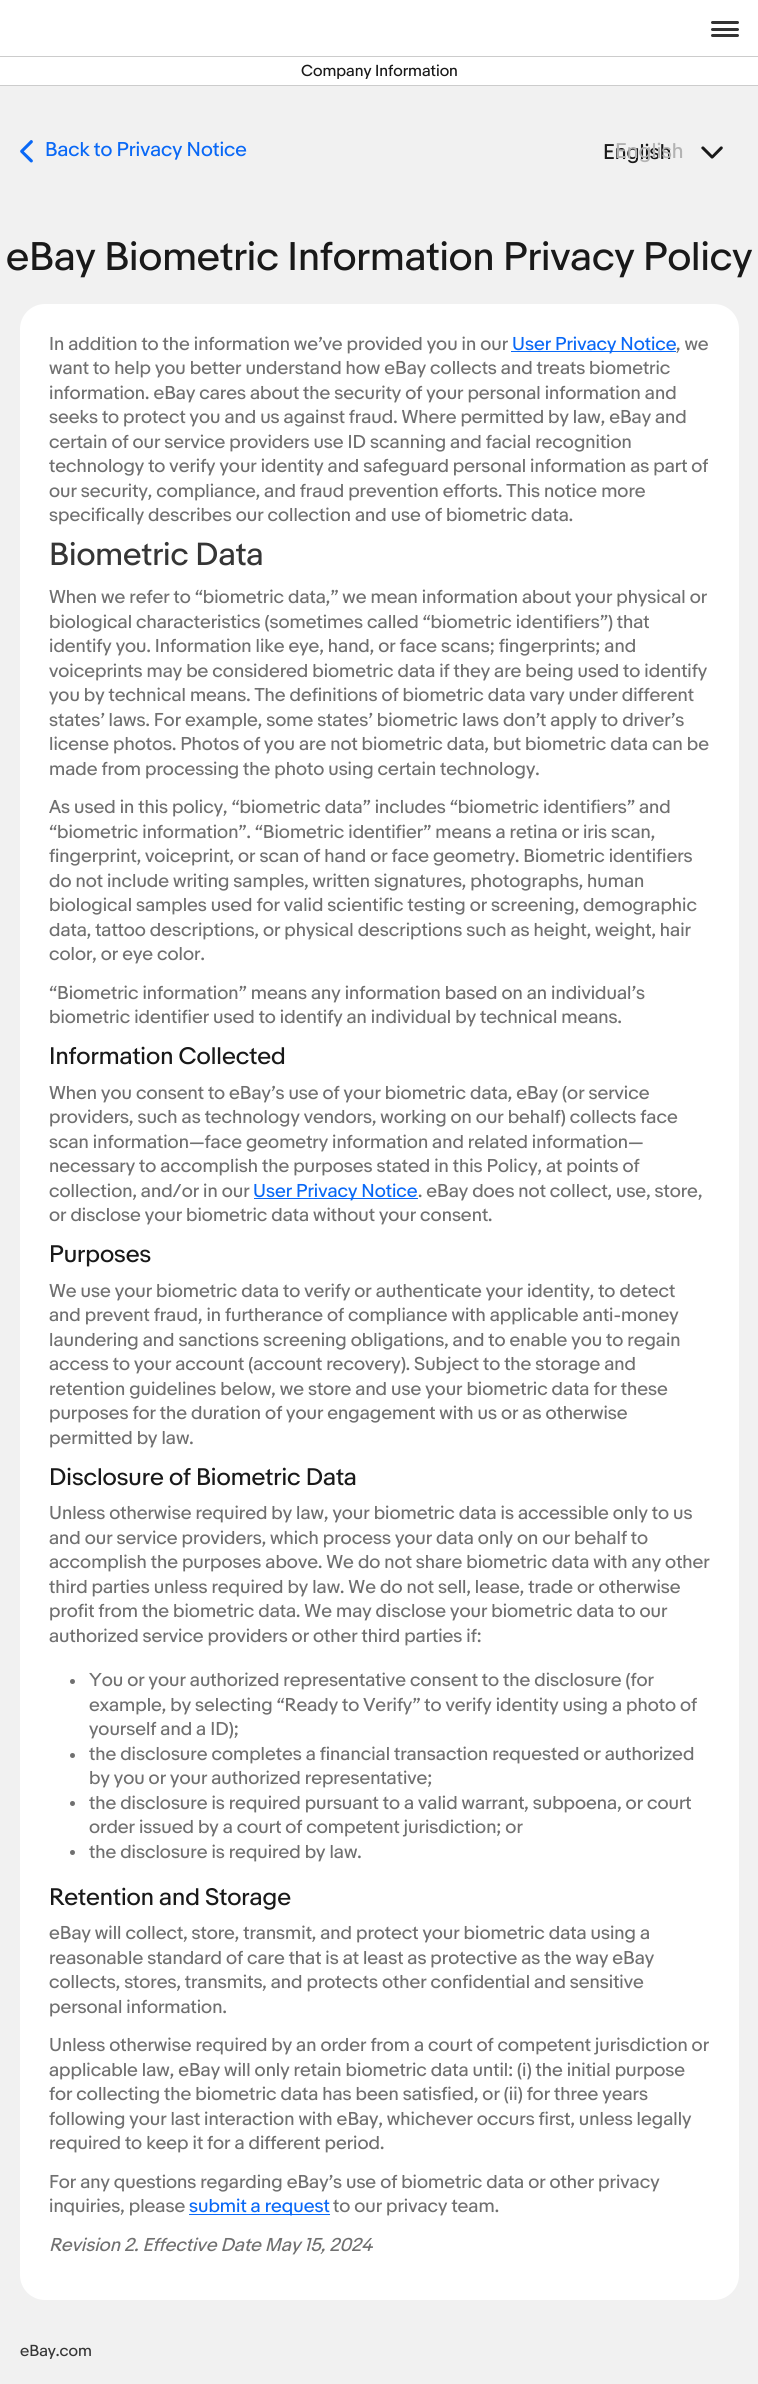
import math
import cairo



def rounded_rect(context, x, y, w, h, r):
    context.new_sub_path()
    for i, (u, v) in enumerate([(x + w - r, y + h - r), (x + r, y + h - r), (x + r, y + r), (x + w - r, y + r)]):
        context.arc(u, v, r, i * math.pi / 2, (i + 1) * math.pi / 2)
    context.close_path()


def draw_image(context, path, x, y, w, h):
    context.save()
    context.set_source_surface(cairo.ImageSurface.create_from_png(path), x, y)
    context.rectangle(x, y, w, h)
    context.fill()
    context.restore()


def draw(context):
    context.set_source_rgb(241 / 255, 241 / 255, 241 / 255)
    context.paint()
    context.set_source_rgb(1, 1, 1)
    context.rectangle(0, 0, 758, 85)
    context.fill()
    context.set_source_rgb(51 / 255, 51 / 255, 51 / 255)
    rounded_rect(context, 711, 28, 28, 3, 1.5)
    context.fill()
    rounded_rect(context, 711, 21, 28, 3, 1.5)
    context.fill()
    rounded_rect(context, 711, 34, 28, 3, 1.5)
    context.fill()
    context.set_source_rgb(204 / 255, 204 / 255, 204 / 255)
    context.rectangle(0, 56, 758, 1)
    context.fill()
    context.rectangle(0, 85, 758, 1)
    context.fill()
    draw_image(context, "images/1.png", 20, 140, 13, 23)
    draw_image(context, "images/2.png", 701, 146, 22, 13)
    context.set_source_rgb(1, 1, 1)
    rounded_rect(context, 20, 304, 719, 1996, 25)
    context.fill()
    context.set_source_rgb(9 / 255, 104 / 255, 246 / 255)
    context.rectangle(511, 351, 165, 1)
    context.fill()
    context.rectangle(254, 1198, 164, 1)
    context.fill()
    context.set_source_rgb(112 / 255, 112 / 255, 112 / 255)
    context.arc(72.5, 1681.5, 2.5, 0, 2 * math.pi)
    context.fill()
    context.arc(72.5, 1755.5, 2.5, 0, 2 * math.pi)
    context.fill()
    context.arc(72.5, 1803.5, 2.5, 0, 2 * math.pi)
    context.fill()
    context.arc(72.5, 1852.5, 2.5, 0, 2 * math.pi)
    context.fill()
    context.set_source_rgb(9 / 255, 104 / 255, 246 / 255)
    context.rectangle(189, 2214, 141, 1)
    context.fill()
    context.select_font_face("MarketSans")
    context.set_font_size(15)
    context.set_source_rgb(25 / 255, 25 / 255, 25 / 255)
    context.move_to(301, 76)
    context.show_text("Company Information")
    context.set_font_size(18.75)
    context.set_source_rgb(9 / 255, 104 / 255, 246 / 255)
    context.move_to(45, 156)
    context.show_text("Back to Privacy Notice")
    context.set_font_size(20)
    context.set_source_rgb(25 / 255, 25 / 255, 25 / 255)
    context.move_to(603, 159)
    context.show_text("English")
    context.set_source_rgb(179 / 255, 179 / 255, 179 / 255)
    context.move_to(615, 158)
    context.show_text("English")
    context.set_font_size(37.5)
    context.set_source_rgb(25 / 255, 25 / 255, 25 / 255)
    context.move_to(6, 270)
    context.show_text("eBay Biometric Information Privacy Policy")
    context.set_font_size(17.5)
    context.set_source_rgb(112 / 255, 112 / 255, 112 / 255)
    context.move_to(49, 350)
    context.show_text("In addition to the information we’ve provided you in our")
    context.set_source_rgb(9 / 255, 104 / 255, 246 / 255)
    context.move_to(512, 350)
    context.show_text("User Privacy Notice")
    context.set_source_rgb(112 / 255, 112 / 255, 112 / 255)
    context.move_to(676, 350)
    context.show_text(", we")
    context.move_to(49, 374)
    context.show_text("want to help you better understand how eBay collects and treats biometric")
    context.move_to(49, 399)
    context.show_text("information. eBay cares about the security of your personal information and")
    context.move_to(49, 423)
    context.show_text("seeks to protect you and us against fraud. Where permitted by law, eBay and")
    context.move_to(49, 448)
    context.show_text("certain of our service providers use ID scanning and facial recognition")
    context.move_to(49, 472)
    context.show_text("technology to verify your identity and safeguard personal information as part of")
    context.move_to(49, 497)
    context.show_text("our security, compliance, and fraud prevention efforts. This notice more")
    context.move_to(49, 521)
    context.show_text("specifically describes our collection and use of biometric data.")
    context.set_font_size(30)
    context.set_source_rgb(54 / 255, 54 / 255, 54 / 255)
    context.move_to(49, 565)
    context.show_text("Biometric Data")
    context.set_font_size(17.5)
    context.set_source_rgb(112 / 255, 112 / 255, 112 / 255)
    context.move_to(49, 603)
    context.show_text("When we refer to “biometric data,” we mean information about your physical or")
    context.move_to(49, 628)
    context.show_text("biological characteristics (sometimes called “biometric identifiers”) that")
    context.move_to(49, 652)
    context.show_text("identify you. Information like eye, hand, or face scans; fingerprints; and")
    context.move_to(49, 677)
    context.show_text("voiceprints may be considered biometric data if they are being used to identify")
    context.move_to(49, 701)
    context.show_text("you by technical means. The definitions of biometric data vary under different")
    context.move_to(49, 726)
    context.show_text("states’ laws. For example, some states’ biometric laws don’t apply to driver’s")
    context.move_to(49, 750)
    context.show_text("license photos. Photos of you are not biometric data, but biometric data can be")
    context.move_to(49, 775)
    context.show_text("made from processing the photo using certain technology.")
    context.move_to(49, 813)
    context.show_text("As used in this policy, “biometric data” includes “biometric identifiers” and")
    context.move_to(49, 838)
    context.show_text("“biometric information”. “Biometric identifier” means a retina or iris scan,")
    context.move_to(49, 862)
    context.show_text("fingerprint, voiceprint, or scan of hand or face geometry. Biometric identifiers")
    context.move_to(49, 887)
    context.show_text("do not include writing samples, written signatures, photographs, human")
    context.move_to(49, 911)
    context.show_text("biological samples used for valid scientific testing or screening, demographic")
    context.move_to(49, 936)
    context.show_text("data, tattoo descriptions, or physical descriptions such as height, weight, hair")
    context.move_to(49, 960)
    context.show_text("color, or eye color.")
    context.move_to(49, 999)
    context.show_text("“Biometric information” means any information based on an individual’s")
    context.move_to(49, 1023)
    context.show_text("biometric identifier used to identify an individual by technical means.")
    context.set_font_size(22.5)
    context.set_source_rgb(25 / 255, 25 / 255, 25 / 255)
    context.move_to(49, 1064)
    context.show_text("Information Collected")
    context.set_font_size(17.5)
    context.set_source_rgb(112 / 255, 112 / 255, 112 / 255)
    context.move_to(49, 1099)
    context.show_text("When you consent to eBay’s use of your biometric data, eBay (or service")
    context.move_to(49, 1123)
    context.show_text("providers, such as technology vendors, working on our behalf) collects face")
    context.move_to(49, 1148)
    context.show_text("scan information—face geometry information and related information—")
    context.move_to(49, 1172)
    context.show_text("necessary to accomplish the purposes stated in this Policy, at points of")
    context.move_to(49, 1197)
    context.show_text("collection, and/or in our")
    context.set_source_rgb(9 / 255, 104 / 255, 246 / 255)
    context.move_to(253, 1197)
    context.show_text("User Privacy Notice")
    context.set_source_rgb(112 / 255, 112 / 255, 112 / 255)
    context.move_to(418, 1197)
    context.show_text(". eBay does not collect, use, store,")
    context.move_to(49, 1221)
    context.show_text("or disclose your biometric data without your consent.")
    context.set_font_size(22.5)
    context.set_source_rgb(25 / 255, 25 / 255, 25 / 255)
    context.move_to(49, 1262)
    context.show_text("Purposes")
    context.set_font_size(17.5)
    context.set_source_rgb(112 / 255, 112 / 255, 112 / 255)
    context.move_to(49, 1297)
    context.show_text("We use your biometric data to verify or authenticate your identity, to detect")
    context.move_to(49, 1321)
    context.show_text("and prevent fraud, in furtherance of compliance with applicable anti-money")
    context.move_to(49, 1346)
    context.show_text("laundering and sanctions screening obligations, and to enable you to regain")
    context.move_to(49, 1370)
    context.show_text("access to your account (account recovery). Subject to the storage and")
    context.move_to(49, 1395)
    context.show_text("retention guidelines below, we store and use your biometric data for these")
    context.move_to(49, 1419)
    context.show_text("purposes for the duration of your engagement with us or as otherwise")
    context.move_to(49, 1444)
    context.show_text("permitted by law.")
    context.set_font_size(22.5)
    context.set_source_rgb(25 / 255, 25 / 255, 25 / 255)
    context.move_to(49, 1485)
    context.show_text("Disclosure of Biometric Data")
    context.set_font_size(17.5)
    context.set_source_rgb(112 / 255, 112 / 255, 112 / 255)
    context.move_to(49, 1519)
    context.show_text("Unless otherwise required by law, your biometric data is accessible only to us")
    context.move_to(49, 1544)
    context.show_text("and our service providers, which process your data only on our behalf to")
    context.move_to(49, 1568)
    context.show_text("accomplish the purposes above. We do not share biometric data with any other")
    context.move_to(49, 1593)
    context.show_text("third parties unless required by law. We do not sell, lease, trade or otherwise")
    context.move_to(49, 1617)
    context.show_text("profit from the biometric data. We may disclose your biometric data to our")
    context.move_to(49, 1642)
    context.show_text("authorized service providers or other third parties if:")
    context.move_to(89, 1686)
    context.show_text("You or your authorized representative consent to the disclosure (for")
    context.move_to(89, 1711)
    context.show_text("example, by selecting “Ready to Verify” to verify identity using a photo of")
    context.move_to(89, 1735)
    context.show_text("yourself and a ID);")
    context.move_to(89, 1760)
    context.show_text("the disclosure completes a financial transaction requested or authorized")
    context.move_to(89, 1784)
    context.show_text("by you or your authorized representative;")
    context.move_to(89, 1809)
    context.show_text("the disclosure is required pursuant to a valid warrant, subpoena, or court")
    context.move_to(89, 1833)
    context.show_text("order issued by a court of competent jurisdiction; or")
    context.move_to(89, 1858)
    context.show_text("the disclosure is required by law.")
    context.set_font_size(22.5)
    context.set_source_rgb(25 / 255, 25 / 255, 25 / 255)
    context.move_to(49, 1905)
    context.show_text("Retention and Storage")
    context.set_font_size(17.5)
    context.set_source_rgb(112 / 255, 112 / 255, 112 / 255)
    context.move_to(49, 1939)
    context.show_text("eBay will collect, store, transmit, and protect your biometric data using a")
    context.move_to(49, 1964)
    context.show_text("reasonable standard of care that is at least as protective as the way eBay")
    context.move_to(49, 1988)
    context.show_text("collects, stores, transmits, and protects other confidential and sensitive")
    context.move_to(49, 2013)
    context.show_text("personal information.")
    context.move_to(49, 2051)
    context.show_text("Unless otherwise required by an order from a court of competent jurisdiction or")
    context.move_to(49, 2076)
    context.show_text("applicable law, eBay will only retain biometric data until: (i) the initial purpose")
    context.move_to(49, 2100)
    context.show_text("for collecting the biometric data has been satisfied, or (ii) for three years")
    context.move_to(49, 2125)
    context.show_text("following your last interaction with eBay, whichever occurs first, unless legally")
    context.move_to(49, 2149)
    context.show_text("required to keep it for a different period.")
    context.move_to(49, 2188)
    context.show_text("For any questions regarding eBay’s use of biometric data or other privacy")
    context.move_to(49, 2212)
    context.show_text("inquiries, please")
    context.set_source_rgb(9 / 255, 104 / 255, 246 / 255)
    context.move_to(189, 2212)
    context.show_text("submit a request")
    context.set_source_rgb(112 / 255, 112 / 255, 112 / 255)
    context.move_to(333, 2212)
    context.show_text("to our privacy team.")
    context.select_font_face("MarketSans", cairo.FontSlant.ITALIC)
    context.move_to(49, 2251)
    context.show_text("Revision 2. Effective Date May 15, 2024")
    context.select_font_face("MarketSans")
    context.set_font_size(15)
    context.set_source_rgb(54 / 255, 54 / 255, 54 / 255)
    context.move_to(20, 2356)
    context.show_text("eBay.com")


surface = cairo.ImageSurface(cairo.Format.RGB24, 758, 2384)
context = cairo.Context(surface)
options = cairo.FontOptions()
options.set_hint_metrics(cairo.HintMetrics.OFF)
options.set_hint_style(cairo.HintStyle.NONE)
context.set_font_options(options)
context.set_miter_limit(4)
draw(context)
surface.write_to_png("out.png")
